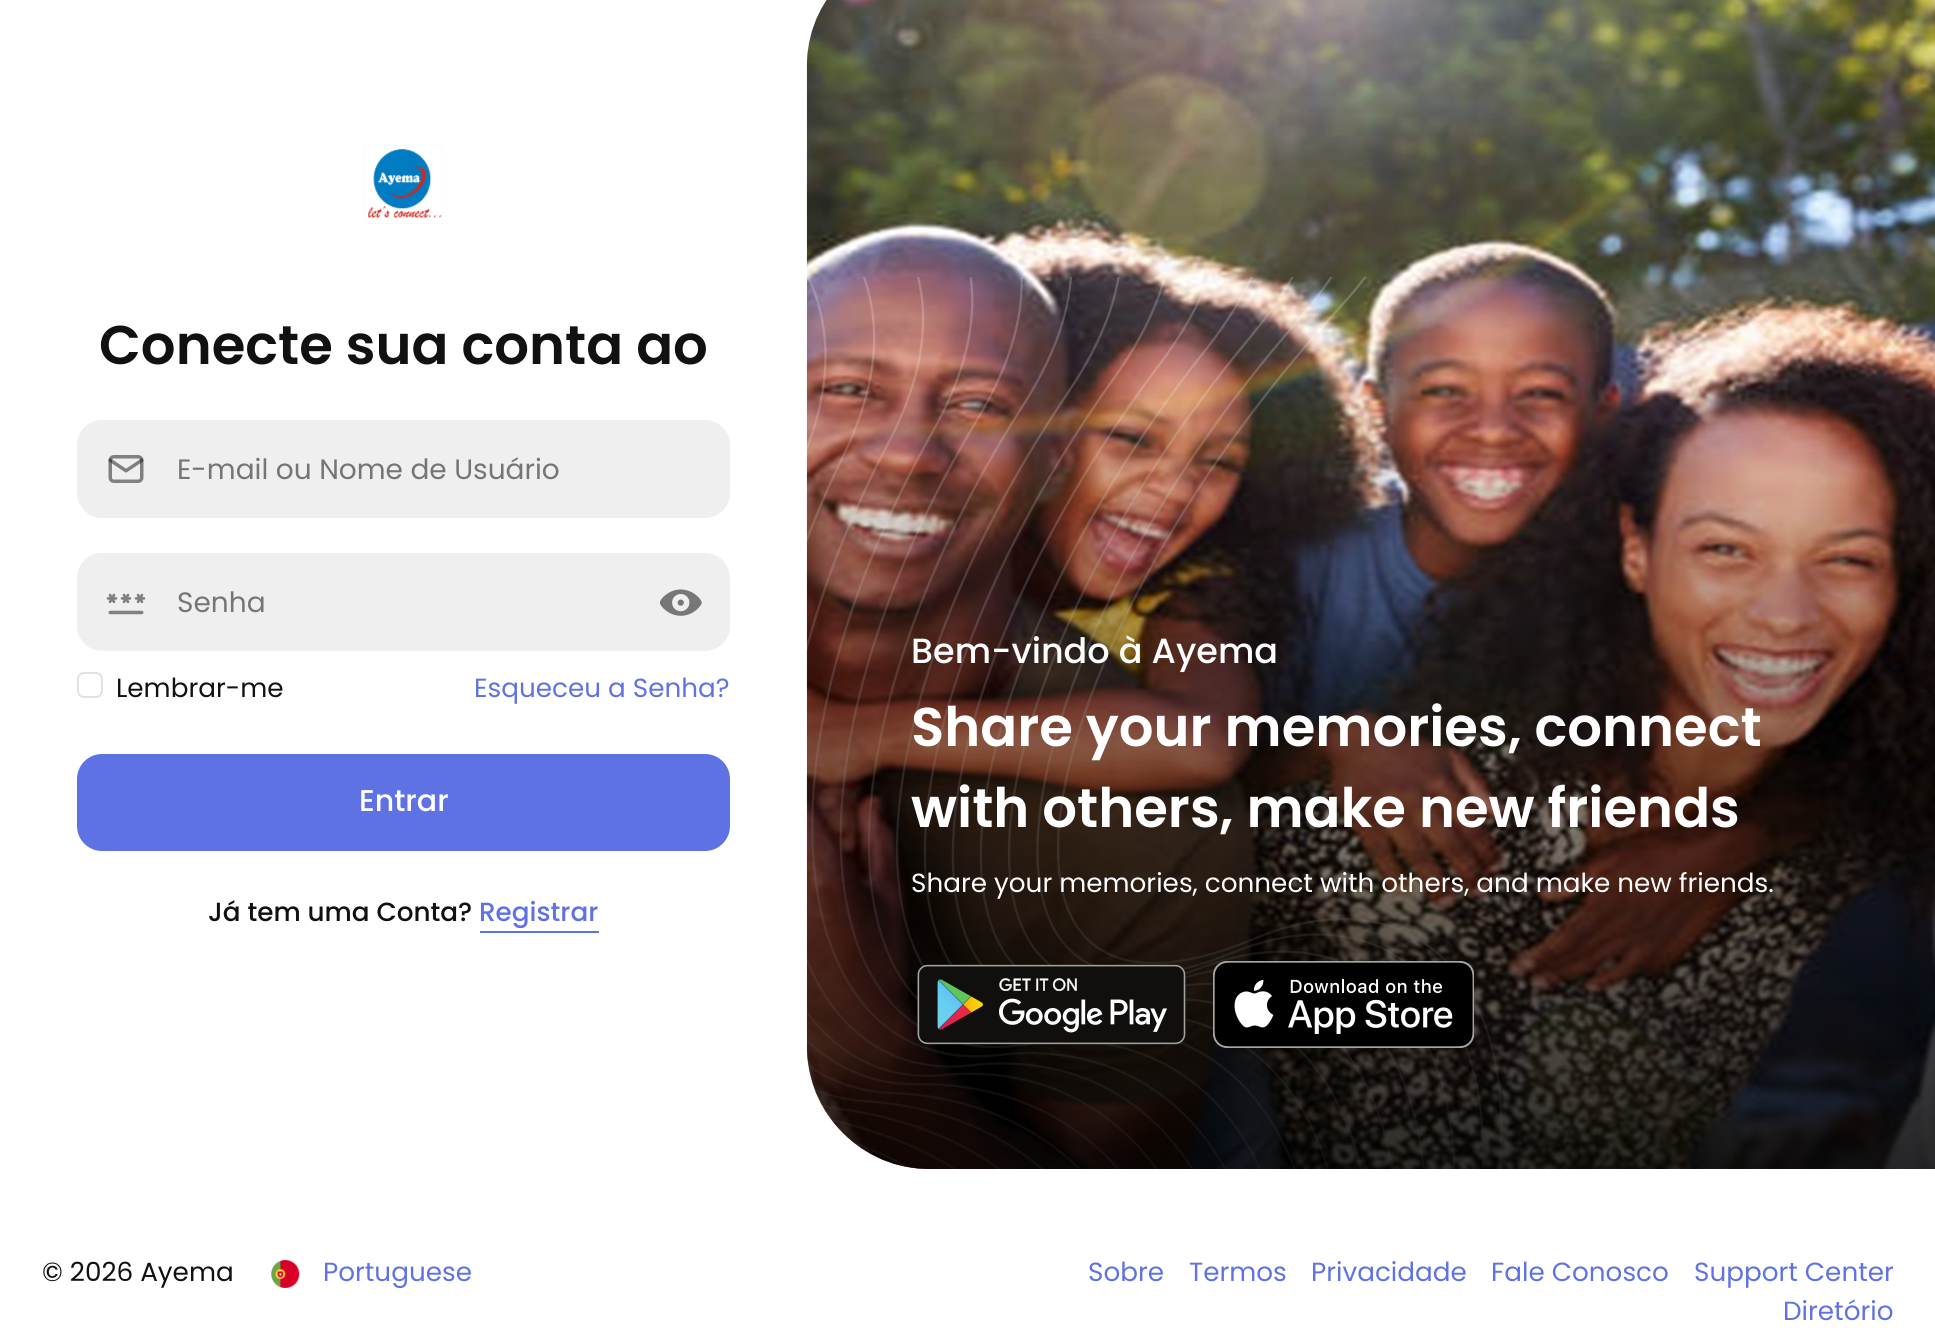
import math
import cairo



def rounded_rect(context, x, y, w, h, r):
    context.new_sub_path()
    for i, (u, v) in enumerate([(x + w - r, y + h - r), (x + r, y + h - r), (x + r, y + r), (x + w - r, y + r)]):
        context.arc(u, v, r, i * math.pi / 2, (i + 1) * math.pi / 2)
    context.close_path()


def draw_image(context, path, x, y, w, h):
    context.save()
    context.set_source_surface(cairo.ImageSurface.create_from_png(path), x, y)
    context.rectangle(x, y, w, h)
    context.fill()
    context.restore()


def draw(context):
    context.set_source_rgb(1, 1, 1)
    context.paint()
    draw_image(context, "images/1.png", 364, 145, 79, 79)
    context.set_source_rgb(239 / 255, 239 / 255, 239 / 255)
    rounded_rect(context, 79, 422, 649, 94, 23)
    context.fill_preserve()
    context.set_line_width(4)
    context.stroke()
    draw_image(context, "images/2.png", 108, 455, 36, 28)
    rounded_rect(context, 79, 555, 649, 94, 23)
    context.fill_preserve()
    context.stroke()
    draw_image(context, "images/3.png", 106, 593, 40, 22)
    draw_image(context, "images/4.png", 660, 589, 42, 27)
    rounded_rect(context, 78, 673, 24, 24, 6)
    context.set_source_rgb(222 / 255, 226 / 255, 230 / 255)
    context.set_line_width(2)
    context.stroke()
    context.set_source_rgb(94 / 255, 114 / 255, 228 / 255)
    rounded_rect(context, 77, 754, 653, 97, 25)
    context.fill()
    context.rectangle(480, 931, 119, 2)
    context.fill()
    draw_image(context, "images/5.png", 806, 0, 1129, 1169)
    draw_image(context, "images/6.png", 910, 0, 919, 179)
    draw_image(context, "images/7.png", 807, 277, 696, 892)
    gradient = cairo.LinearGradient(1371, 367, 1371, 1169)
    gradient.add_color_stop_rgba(0, 0, 0, 0, 0)
    gradient.add_color_stop_rgba(1, 0, 0, 0, 0.8)
    context.set_source(gradient)
    context.new_path()
    context.move_to(807, 368)
    context.line_to(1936, 368)
    context.line_to(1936, 1169)
    context.line_to(930, 1169)
    context.curve_to(862, 1169, 807, 1114, 807, 1046)
    context.close_path()
    context.fill()
    draw_image(context, "images/8.png", 917, 964, 269, 81)
    draw_image(context, "images/9.png", 1213, 961, 261, 87)
    draw_image(context, "images/10.png", 271, 1260, 29, 28)
    context.select_font_face("Poppins SemiBold")
    context.set_font_size(54.5)
    context.set_source_rgb(17 / 255, 17 / 255, 17 / 255)
    context.move_to(99, 364)
    context.show_text("Conecte sua conta ao")
    context.select_font_face("Poppins")
    context.set_font_size(28)
    context.set_source_rgb(117 / 255, 117 / 255, 117 / 255)
    context.move_to(177, 479)
    context.show_text("E-mail ou Nome de Usuário")
    context.move_to(177, 612)
    context.show_text("Senha")
    context.set_font_size(26.25)
    context.set_source_rgb(17 / 255, 17 / 255, 17 / 255)
    context.move_to(116, 697)
    context.show_text("Lembrar-me")
    context.set_source_rgb(94 / 255, 114 / 255, 228 / 255)
    context.move_to(474, 697)
    context.show_text("Esqueceu a Senha?")
    context.select_font_face("Poppins Medium")
    context.set_font_size(30)
    context.set_source_rgb(1, 1, 1)
    context.move_to(359, 811)
    context.show_text("Entrar")
    context.set_font_size(26.25)
    context.set_source_rgb(17 / 255, 17 / 255, 17 / 255)
    context.move_to(208, 921)
    context.show_text("Já tem uma Conta?")
    context.set_source_rgb(94 / 255, 114 / 255, 228 / 255)
    context.move_to(479, 921)
    context.show_text("Registrar")
    context.set_font_size(35)
    context.set_source_rgb(1, 1, 1)
    context.move_to(911, 663)
    context.show_text("Bem-vindo à Ayema")
    context.select_font_face("Poppins SemiBold")
    context.set_font_size(54.5)
    context.move_to(911, 746)
    context.show_text("Share your memories, connect")
    context.move_to(911, 827)
    context.show_text("with others, make new friends")
    context.select_font_face("Poppins")
    context.set_font_size(26.25)
    context.move_to(911, 892)
    context.show_text("Share your memories, connect with others, and make new friends.")
    context.set_source_rgb(17 / 255, 17 / 255, 17 / 255)
    context.move_to(42, 1281)
    context.show_text("© 2026 Ayema")
    context.set_source_rgb(94 / 255, 114 / 255, 228 / 255)
    context.move_to(323, 1281)
    context.show_text("Portuguese")
    context.move_to(1088, 1281)
    context.show_text("Sobre")
    context.move_to(1189, 1281)
    context.show_text("Termos")
    context.move_to(1311, 1281)
    context.show_text("Privacidade")
    context.move_to(1491, 1281)
    context.show_text("Fale Conosco")
    context.move_to(1694, 1281)
    context.show_text("Support Center")
    context.move_to(1783, 1320)
    context.show_text("Diretório")


surface = cairo.ImageSurface(cairo.Format.RGB24, 1935, 1331)
context = cairo.Context(surface)
options = cairo.FontOptions()
options.set_hint_metrics(cairo.HintMetrics.OFF)
options.set_hint_style(cairo.HintStyle.NONE)
context.set_font_options(options)
context.set_miter_limit(4)
draw(context)
surface.write_to_png("out.png")
